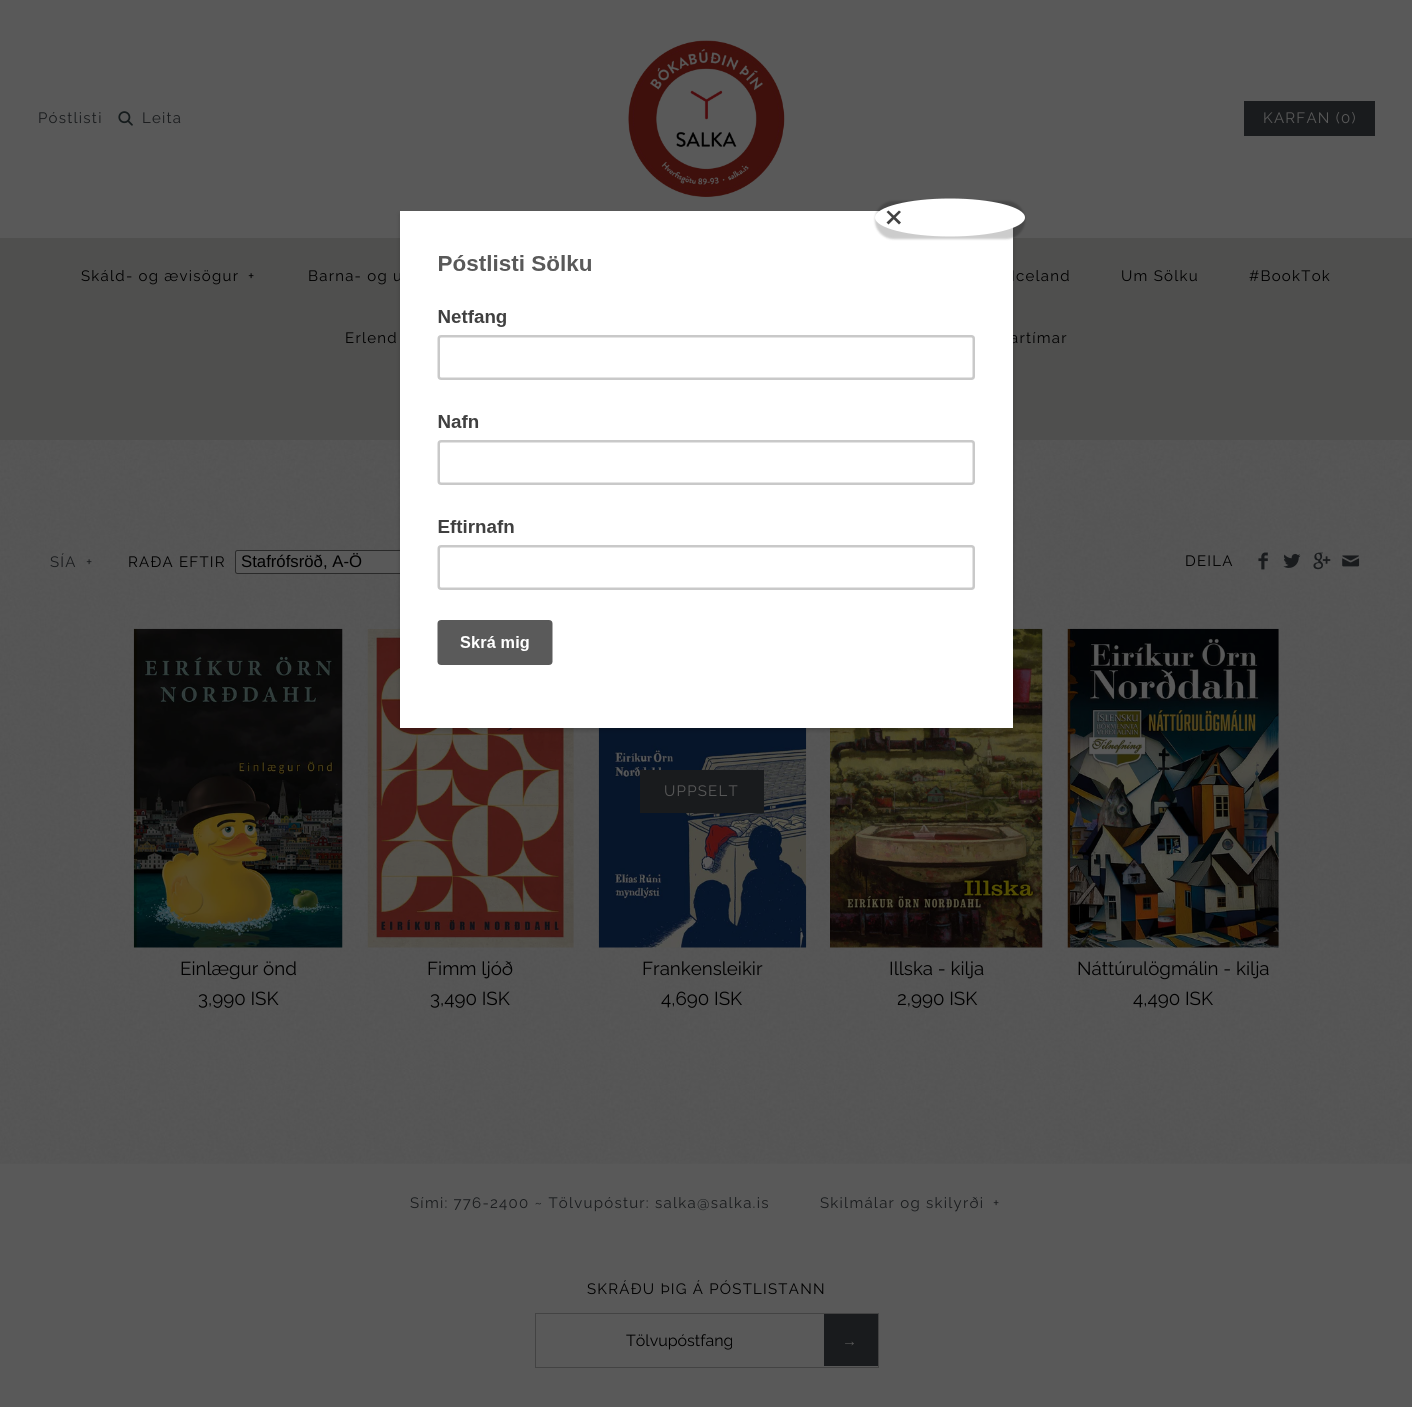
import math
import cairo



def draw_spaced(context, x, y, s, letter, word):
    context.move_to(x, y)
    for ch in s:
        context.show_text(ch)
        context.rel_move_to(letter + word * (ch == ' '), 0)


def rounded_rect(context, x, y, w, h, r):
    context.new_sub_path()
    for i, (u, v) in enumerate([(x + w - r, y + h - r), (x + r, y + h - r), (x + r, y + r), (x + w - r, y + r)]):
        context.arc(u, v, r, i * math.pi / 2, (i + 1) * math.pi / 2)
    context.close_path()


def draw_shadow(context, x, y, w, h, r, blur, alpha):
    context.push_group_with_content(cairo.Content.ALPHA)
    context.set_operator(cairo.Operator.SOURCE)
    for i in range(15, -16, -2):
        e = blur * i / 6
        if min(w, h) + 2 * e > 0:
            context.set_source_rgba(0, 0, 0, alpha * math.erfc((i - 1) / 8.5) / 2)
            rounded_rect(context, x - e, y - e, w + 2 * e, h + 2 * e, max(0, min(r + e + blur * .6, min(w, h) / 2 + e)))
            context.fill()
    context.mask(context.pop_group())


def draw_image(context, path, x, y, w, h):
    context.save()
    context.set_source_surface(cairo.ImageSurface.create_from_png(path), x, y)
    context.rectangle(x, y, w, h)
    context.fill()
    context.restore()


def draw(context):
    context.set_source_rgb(89 / 255, 89 / 255, 89 / 255)
    context.paint()
    draw_image(context, "images/1.png", 628, 40, 157, 157)
    draw_image(context, "images/2.png", 118, 111, 15, 15)
    context.set_source_rgb(25 / 255, 27 / 255, 29 / 255)
    context.rectangle(1244, 101, 131, 35)
    context.fill()
    context.set_source_rgb(79 / 255, 79 / 255, 78 / 255)
    context.rectangle(0, 238, 1412, 202)
    context.fill()
    draw_image(context, "images/4.png", 0, 440, 1412, 724)
    context.set_source_rgb(89 / 255, 89 / 255, 89 / 255)
    rounded_rect(context, 235.5, 550.5, 219, 23, 2)
    context.fill_preserve()
    context.set_source_rgb(41 / 255, 41 / 255, 41 / 255)
    context.set_line_width(1)
    context.stroke()
    draw_image(context, "images/10.png", 367, 629, 207, 319)
    draw_image(context, "images/11.png", 598, 728, 209, 220)
    draw_image(context, "images/12.png", 830, 628, 213, 320)
    context.set_source_rgb(0, 0, 0)
    draw_shadow(context, 400, 214, 613, 516, 0, 2.5, 0.2)
    draw_image(context, "images/5.png", 1258, 552, 10, 18)
    draw_image(context, "images/6.png", 1283, 553, 18, 15)
    draw_image(context, "images/7.png", 1313, 552, 18, 18)
    draw_image(context, "images/8.png", 1342, 555, 18, 12)
    draw_image(context, "images/9.png", 133, 628, 210, 320)
    context.set_source_rgb(25 / 255, 27 / 255, 29 / 255)
    context.rectangle(640, 770, 124, 43)
    context.fill()
    draw_image(context, "images/13.png", 1067, 628, 212, 320)
    context.rectangle(535.5, 1313.5, 343, 54)
    context.set_source_rgb(67 / 255, 67 / 255, 67 / 255)
    context.stroke()
    context.set_source_rgb(25 / 255, 27 / 255, 29 / 255)
    context.rectangle(824, 1314, 54, 52)
    context.fill()
    context.select_font_face("Raleway")
    context.set_font_size(15)
    draw_spaced(context, 38, 123, "Póstlisti", 1.25, 0)
    draw_spaced(context, 142, 123, "Leita", 1.25, 0)
    context.set_source_rgb(89 / 255, 89 / 255, 89 / 255)
    draw_spaced(context, 1263, 123, "KARFAN (0)", 1.25, 0)
    context.set_source_rgb(0, 0, 0)
    draw_spaced(context, 81, 281, "Skáld- og ævisögur", 1.25, 0)
    draw_spaced(context, 248, 281, "+", 1.25, 0)
    draw_spaced(context, 308, 281, "Barna- og u", 1.25, 0)
    draw_spaced(context, 1011, 281, "Iceland", 1.25, 0)
    draw_spaced(context, 1121, 281, "Um Sölku", 1.25, 0)
    draw_spaced(context, 1249, 281, "#BookTok", 1.25, 0)
    draw_spaced(context, 345, 343, "Erlend", 1.25, 0)
    draw_spaced(context, 1010, 343, "artímar", 1.25, 0)
    draw_image(context, "images/3.png", 400, 211, 613, 517)
    context.set_source_rgb(0, 0, 0)
    draw_shadow(context, 875, 201, 150, 38, 19, 1, 0.2)
    context.set_source_rgb(1, 1, 1)
    context.new_path()
    context.move_to(950, 198.5)
    context.curve_to(991.5, 198.5, 1025, 207, 1025, 217.5)
    context.curve_to(1025, 228, 991.5, 236.5, 950, 236.5)
    context.curve_to(908.5, 236.5, 875, 228, 875, 217.5)
    context.curve_to(875, 207, 908.5, 198.5, 950, 198.5)
    context.close_path()
    context.fill()
    context.set_source_rgb(65 / 255, 65 / 255, 65 / 255)
    context.new_path()
    context.move_to(899, 210.5)
    context.line_to(901, 212)
    context.line_to(888.5, 224.5)
    context.line_to(886.5, 222.5)
    context.close_path()
    context.fill()
    context.new_path()
    context.move_to(886.5, 212)
    context.line_to(888.5, 210.5)
    context.line_to(901, 222.5)
    context.line_to(899, 224.5)
    context.close_path()
    context.fill()
    context.set_source_rgb(25 / 255, 27 / 255, 29 / 255)
    draw_spaced(context, 50, 567, "SÍA", 1.25, 0)
    draw_spaced(context, 86, 567, "+", 1.25, 0)
    context.set_source_rgb(0, 0, 0)
    draw_spaced(context, 128, 567, "RAÐA EFTIR", 1.25, 0)
    context.select_font_face("Liberation Sans")
    context.set_font_size(16.75)
    context.move_to(241, 567)
    context.show_text("Stafrófsröð, A-Ö")
    context.select_font_face("Raleway")
    context.set_font_size(15)
    draw_spaced(context, 1185, 566, "DEILA", 1.25, 0)
    context.set_font_size(18.75)
    context.move_to(180, 975)
    context.show_text("Einlægur önd")
    context.move_to(198, 1005)
    context.show_text("3,990 ISK")
    context.move_to(427, 975)
    context.show_text("Fimm ljóð")
    context.move_to(430, 1005)
    context.show_text("3,490 ISK")
    context.set_font_size(15)
    context.set_source_rgb(89 / 255, 89 / 255, 89 / 255)
    draw_spaced(context, 664, 796, "UPPSELT", 1.25, 0)
    context.set_font_size(18.75)
    context.set_source_rgb(0, 0, 0)
    context.move_to(642, 975)
    context.show_text("Frankensleikir")
    context.move_to(661, 1005)
    context.show_text("4,690 ISK")
    context.move_to(889, 975)
    context.show_text("Illska - kilja")
    context.move_to(897, 1005)
    context.show_text("2,990 ISK")
    context.move_to(1077, 975)
    context.show_text("Náttúrulögmálin - kilja")
    context.move_to(1133, 1005)
    context.show_text("4,490 ISK")
    context.set_font_size(15)
    context.set_source_rgb(25 / 255, 27 / 255, 29 / 255)
    draw_spaced(context, 410, 1208, "Sími: 776-2400 ~ Tölvupóstur: salka@salka.is", 1.25, 0)
    draw_spaced(context, 820, 1208, "Skilmálar og skilyrði", 1.25, 0)
    draw_spaced(context, 993, 1208, "+", 1.25, 0)
    context.set_source_rgb(0, 0, 0)
    draw_spaced(context, 587, 1294, "SKRÁÐU ÞIG Á PÓSTLISTANN", 1.25, 0)
    context.set_font_size(16)
    context.move_to(626, 1346)
    context.show_text("Tölvupóstfang")
    context.select_font_face("Liberation Serif")
    context.set_font_size(15)
    context.set_source_rgb(89 / 255, 89 / 255, 89 / 255)
    draw_spaced(context, 842, 1346, "→", 1.25, 0)


surface = cairo.ImageSurface(cairo.Format.RGB24, 1412, 1407)
context = cairo.Context(surface)
options = cairo.FontOptions()
options.set_hint_metrics(cairo.HintMetrics.OFF)
options.set_hint_style(cairo.HintStyle.NONE)
context.set_font_options(options)
context.set_miter_limit(4)
draw(context)
surface.write_to_png("out.png")
